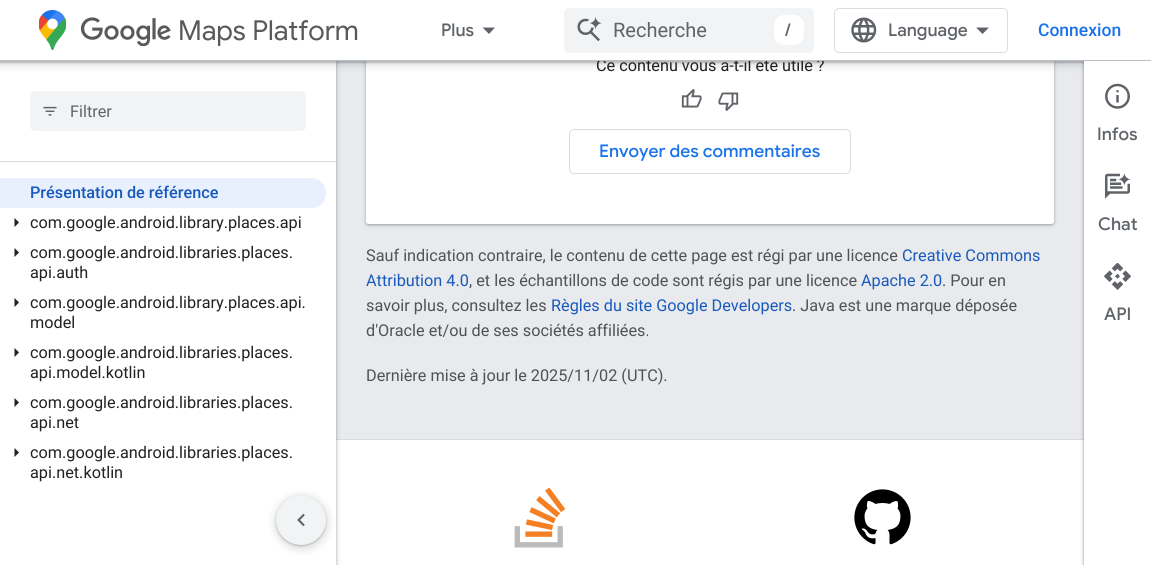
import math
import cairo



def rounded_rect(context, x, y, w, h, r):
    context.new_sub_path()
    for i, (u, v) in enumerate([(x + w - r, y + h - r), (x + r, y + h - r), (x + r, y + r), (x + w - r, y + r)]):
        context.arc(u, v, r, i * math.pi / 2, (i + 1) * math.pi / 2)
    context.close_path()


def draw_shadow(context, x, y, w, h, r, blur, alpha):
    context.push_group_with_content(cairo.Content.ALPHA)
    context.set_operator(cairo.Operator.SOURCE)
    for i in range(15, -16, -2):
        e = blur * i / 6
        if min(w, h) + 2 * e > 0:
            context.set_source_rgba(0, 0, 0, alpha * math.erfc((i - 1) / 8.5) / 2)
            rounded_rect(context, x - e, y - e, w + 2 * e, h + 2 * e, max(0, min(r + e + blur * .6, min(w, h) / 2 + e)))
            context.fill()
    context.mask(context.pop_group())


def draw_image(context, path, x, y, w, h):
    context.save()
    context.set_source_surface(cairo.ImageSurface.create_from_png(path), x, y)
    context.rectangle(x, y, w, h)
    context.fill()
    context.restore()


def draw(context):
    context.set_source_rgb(232 / 255, 234 / 255, 237 / 255)
    context.paint()
    context.set_source_rgb(1, 1, 1)
    context.rectangle(336, 440, 748, 125)
    context.fill()
    context.set_source_rgb(218 / 255, 220 / 255, 224 / 255)
    context.rectangle(336, 439, 748, 1)
    context.fill()
    context.set_source_rgb(60 / 255, 64 / 255, 67 / 255)
    draw_shadow(context, -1, 0, 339, 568, 0, 2, 0.15)
    draw_shadow(context, 0, 1, 336, 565, 0, 1, 0.3)
    context.set_source_rgb(1, 1, 1)
    context.rectangle(0, 61, 336, 504)
    context.fill()
    context.set_source_rgb(60 / 255, 64 / 255, 67 / 255)
    draw_shadow(context, 365, -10, 690, 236, 4, 2, 0.15)
    draw_shadow(context, 366, -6, 688, 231, 2.5, 1, 0.3)
    context.set_source_rgb(1, 1, 1)
    rounded_rect(context, 366, -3, 688, 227, 2.5)
    context.fill()
    context.set_source_rgb(60 / 255, 64 / 255, 67 / 255)
    draw_shadow(context, -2, -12, 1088, 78, 0, 4, 0.15)
    draw_shadow(context, 0, -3, 1084, 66, 0, 1, 0.3)
    context.set_source_rgb(218 / 255, 220 / 255, 224 / 255)
    context.rectangle(0, 161, 336, 1)
    context.fill()
    context.set_source_rgb(241 / 255, 243 / 255, 244 / 255)
    rounded_rect(context, 30, 91, 276, 40, 5)
    context.fill()
    draw_image(context, "images/5.png", 43, 106, 14, 10)
    context.set_source_rgb(232 / 255, 240 / 255, 254 / 255)
    context.new_path()
    context.move_to(0, 178)
    context.line_to(311, 178)
    context.curve_to(319.5, 178, 326, 184.5, 326, 193)
    context.curve_to(326, 201.5, 319.5, 208, 311, 208)
    context.line_to(0, 208)
    context.close_path()
    context.fill()
    context.set_source_rgb(32 / 255, 33 / 255, 36 / 255)
    context.new_path()
    context.move_to(14.5, 227)
    context.line_to(14.5, 218)
    context.line_to(19, 222.5)
    context.close_path()
    context.fill()
    context.new_path()
    context.move_to(14.5, 257)
    context.line_to(14.5, 248)
    context.line_to(19, 252.5)
    context.close_path()
    context.fill()
    context.new_path()
    context.move_to(14.5, 307)
    context.line_to(14.5, 298)
    context.line_to(19, 302.5)
    context.close_path()
    context.fill()
    context.new_path()
    context.move_to(14.5, 357)
    context.line_to(14.5, 348)
    context.line_to(19, 352.5)
    context.close_path()
    context.fill()
    context.new_path()
    context.move_to(14.5, 407)
    context.line_to(14.5, 398)
    context.line_to(19, 402.5)
    context.close_path()
    context.fill()
    context.new_path()
    context.move_to(14.5, 457)
    context.line_to(14.5, 448)
    context.line_to(19, 452.5)
    context.close_path()
    context.fill()
    draw_image(context, "images/6.png", 681, 89, 21, 19)
    draw_image(context, "images/7.png", 718, 92, 21, 19)
    rounded_rect(context, 569.5, 129.5, 281, 44, 4.5)
    context.set_source_rgb(218 / 255, 220 / 255, 224 / 255)
    context.set_line_width(1)
    context.stroke()
    context.set_source_rgb(0, 0, 0)
    draw_shadow(context, 1083, 60, 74, 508, 0, 2, 0.15)
    draw_shadow(context, 1084, 61, 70, 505, 0, 1, 0.3)
    context.set_source_rgb(1, 1, 1)
    context.rectangle(1084, 61, 67, 504)
    context.fill()
    draw_image(context, "images/8.png", 1105, 83, 25, 26)
    draw_image(context, "images/9.png", 1105, 173, 26, 26)
    draw_image(context, "images/10.png", 1104, 263, 27, 27)
    draw_image(context, "images/11.png", 514, 488, 52, 60)
    draw_image(context, "images/12.png", 854, 489, 57, 56)
    context.set_source_rgb(60 / 255, 64 / 255, 67 / 255)
    draw_shadow(context, 274, 495, 55, 55, 27.5, 4, 0.15)
    draw_shadow(context, 276, 496, 50, 50, 25, 1, 0.3)
    context.set_source_rgb(241 / 255, 243 / 255, 244 / 255)
    context.arc(301, 520, 25, 0, 2 * math.pi)
    context.fill()
    draw_image(context, "images/13.png", 297, 513, 8, 14)
    context.select_font_face("Roboto")
    context.set_font_size(16.25)
    context.set_source_rgb(95 / 255, 99 / 255, 104 / 255)
    context.move_to(70, 117)
    context.show_text("Filtrer")
    context.select_font_face("Roboto Medium")
    context.set_source_rgb(24 / 255, 90 / 255, 188 / 255)
    context.move_to(30, 198)
    context.show_text("Présentation de référence")
    context.select_font_face("Roboto")
    context.set_source_rgb(32 / 255, 33 / 255, 36 / 255)
    context.move_to(30, 228)
    context.show_text("com.google.android.library.places.api")
    context.move_to(30, 258)
    context.show_text("com.google.android.libraries.places.")
    context.move_to(30, 278)
    context.show_text("api.auth")
    context.move_to(30, 308)
    context.show_text("com.google.android.library.places.api.")
    context.move_to(30, 328)
    context.show_text("model")
    context.move_to(30, 358)
    context.show_text("com.google.android.libraries.places.")
    context.move_to(30, 378)
    context.show_text("api.model.kotlin")
    context.move_to(30, 408)
    context.show_text("com.google.android.libraries.places.")
    context.move_to(30, 428)
    context.show_text("api.net")
    context.move_to(30, 458)
    context.show_text("com.google.android.libraries.places.")
    context.move_to(30, 478)
    context.show_text("api.net.kotlin")
    context.move_to(596, 71)
    context.show_text("Ce contenu vous a-t-il été utile ?")
    context.set_source_rgb(1, 1, 1)
    context.rectangle(0, 0, 1151, 60)
    context.fill()
    context.set_source_rgb(241 / 255, 243 / 255, 244 / 255)
    rounded_rect(context, 564, 8, 250, 45, 5)
    context.fill()
    context.set_source_rgb(1, 1, 1)
    rounded_rect(context, 774, 15, 30, 30, 10)
    context.fill()
    context.select_font_face("Google Sans Medium")
    context.set_font_size(17.5)
    context.set_source_rgb(95 / 255, 99 / 255, 104 / 255)
    context.move_to(785, 36)
    context.show_text("/")
    draw_image(context, "images/3.png", 577, 16, 25, 26)
    context.select_font_face("Roboto")
    context.set_font_size(20)
    context.move_to(613, 37)
    context.show_text("Recherche")
    context.new_path()
    context.move_to(482.5, 27.5)
    context.line_to(495, 27.5)
    context.line_to(489, 34)
    context.close_path()
    context.fill()
    context.select_font_face("Google Sans Medium")
    context.set_font_size(17.5)
    context.move_to(441, 36)
    context.show_text("Plus")
    rounded_rect(context, 834.5, 8.5, 173, 44, 4.5)
    context.set_source_rgb(218 / 255, 220 / 255, 224 / 255)
    context.stroke()
    context.set_source_rgb(95 / 255, 99 / 255, 104 / 255)
    context.new_path()
    context.move_to(982.5, 34)
    context.line_to(976, 27.5)
    context.line_to(989, 27.5)
    context.close_path()
    context.fill()
    context.move_to(888, 36)
    context.show_text("Language")
    draw_image(context, "images/4.png", 851, 17, 26, 26)
    draw_image(context, "images/2.png", 80, 17, 91, 29)
    context.select_font_face("Roboto Medium")
    context.set_source_rgb(26 / 255, 115 / 255, 232 / 255)
    context.move_to(1038, 36)
    context.show_text("Connexion")
    context.select_font_face("Google Sans")
    context.set_font_size(27.5)
    context.set_source_rgb(89 / 255, 89 / 255, 89 / 255)
    context.move_to(178, 40)
    context.show_text("Maps Platform")
    draw_image(context, "images/1.png", 39, 10, 27, 40)
    context.set_source_rgb(189 / 255, 193 / 255, 198 / 255)
    context.rectangle(0, 60, 1151, 1)
    context.fill()
    context.select_font_face("Google Sans Medium")
    context.set_font_size(17.5)
    context.set_source_rgb(26 / 255, 115 / 255, 232 / 255)
    context.move_to(599, 157)
    context.show_text("Envoyer des commentaires")
    context.select_font_face("Roboto")
    context.set_font_size(16.25)
    context.set_source_rgb(81 / 255, 82 / 255, 83 / 255)
    context.move_to(366, 261)
    context.show_text("Sauf indication contraire, le contenu de cette page est régi par une licence")
    context.set_source_rgb(24 / 255, 90 / 255, 188 / 255)
    context.move_to(902, 261)
    context.show_text("Creative Commons")
    context.move_to(366, 286)
    context.show_text("Attribution 4.0")
    context.set_source_rgb(81 / 255, 82 / 255, 83 / 255)
    context.move_to(469, 286)
    context.show_text(", et les échantillons de code sont régis par une licence")
    context.set_source_rgb(24 / 255, 90 / 255, 188 / 255)
    context.move_to(861, 286)
    context.show_text("Apache 2.0")
    context.set_source_rgb(81 / 255, 82 / 255, 83 / 255)
    context.move_to(942, 286)
    context.show_text(". Pour en")
    context.move_to(366, 311)
    context.show_text("savoir plus, consultez les")
    context.set_source_rgb(24 / 255, 90 / 255, 188 / 255)
    context.move_to(551, 311)
    context.show_text("Règles du site Google Developers")
    context.set_source_rgb(81 / 255, 82 / 255, 83 / 255)
    context.move_to(792, 311)
    context.show_text(". Java est une marque déposée")
    context.move_to(366, 336)
    context.show_text("d'Oracle et/ou de ses sociétés affiliées.")
    context.move_to(366, 381)
    context.show_text("Dernière mise à jour le 2025/11/02 (UTC).")
    context.select_font_face("Google Sans Medium")
    context.set_font_size(17.5)
    context.set_source_rgb(95 / 255, 99 / 255, 104 / 255)
    context.move_to(1097, 140)
    context.show_text("Infos")
    context.move_to(1098, 230)
    context.show_text("Chat")
    context.move_to(1104, 320)
    context.show_text("API")


surface = cairo.ImageSurface(cairo.Format.RGB24, 1151, 565)
context = cairo.Context(surface)
options = cairo.FontOptions()
options.set_hint_metrics(cairo.HintMetrics.OFF)
options.set_hint_style(cairo.HintStyle.NONE)
context.set_font_options(options)
context.set_miter_limit(4)
draw(context)
surface.write_to_png("out.png")
